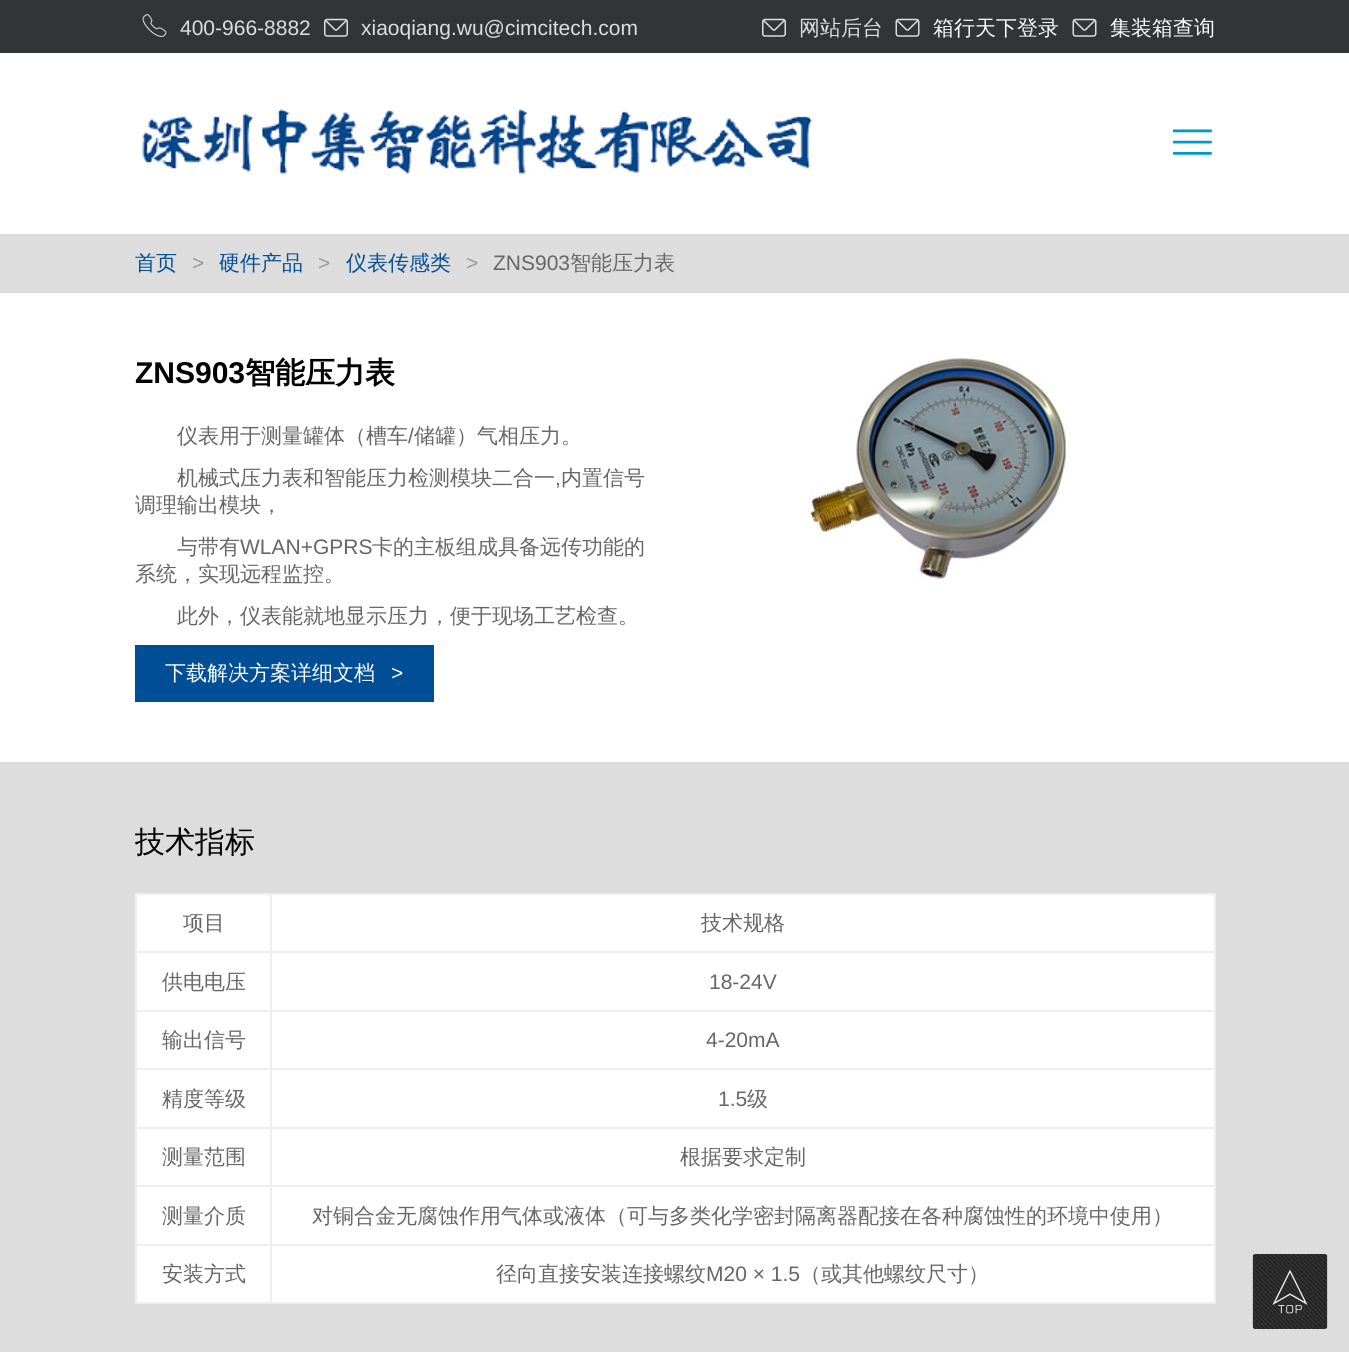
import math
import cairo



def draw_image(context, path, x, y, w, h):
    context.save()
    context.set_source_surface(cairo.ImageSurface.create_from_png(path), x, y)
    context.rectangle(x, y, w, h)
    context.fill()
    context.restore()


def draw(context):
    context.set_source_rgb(1, 1, 1)
    context.paint()
    context.set_source_rgb(51 / 255, 52 / 255, 54 / 255)
    context.rectangle(0, 0, 1349, 53)
    context.fill()
    draw_image(context, "images/1.png", 142, 14, 25, 23)
    draw_image(context, "images/2.png", 324, 18, 24, 19)
    draw_image(context, "images/2.png", 762, 18, 24, 19)
    draw_image(context, "images/3.png", 895, 18, 25, 19)
    draw_image(context, "images/3.png", 1072, 18, 25, 19)
    draw_image(context, "images/4.png", 142, 109, 670, 66)
    draw_image(context, "images/5.png", 1172, 129, 40, 26)
    context.set_source_rgb(221 / 255, 221 / 255, 221 / 255)
    context.rectangle(0, 234, 1349, 59)
    context.fill()
    context.set_source_rgb(0, 78 / 255, 150 / 255)
    context.rectangle(135, 645, 299, 57)
    context.fill()
    draw_image(context, "images/6.png", 809, 354, 258, 227)
    context.set_source_rgb(221 / 255, 221 / 255, 221 / 255)
    context.rectangle(0, 762, 1349, 590)
    context.fill()
    context.set_source_rgb(1, 1, 1)
    context.rectangle(137, 895, 1077, 407)
    context.fill()
    context.set_source_rgb(238 / 255, 238 / 255, 238 / 255)
    context.rectangle(270, 893, 945, 2)
    context.fill()
    context.rectangle(270, 951, 945, 2)
    context.fill()
    context.rectangle(270, 1010, 945, 2)
    context.fill()
    context.rectangle(270, 1068, 945, 2)
    context.fill()
    context.rectangle(270, 1127, 945, 2)
    context.fill()
    context.rectangle(270, 1185, 945, 2)
    context.fill()
    context.rectangle(270, 1244, 945, 2)
    context.fill()
    context.rectangle(1214, 1244, 2, 60)
    context.fill()
    context.rectangle(270, 1302, 945, 2)
    context.fill()
    context.rectangle(270, 1244, 2, 60)
    context.fill()
    context.rectangle(135, 1244, 137, 2)
    context.fill()
    context.rectangle(270, 1185, 2, 60)
    context.fill()
    context.rectangle(135, 1185, 137, 2)
    context.fill()
    context.rectangle(270, 1127, 2, 60)
    context.fill()
    context.rectangle(135, 1127, 137, 2)
    context.fill()
    context.rectangle(270, 1068, 2, 60)
    context.fill()
    context.rectangle(135, 1068, 137, 2)
    context.fill()
    context.rectangle(270, 1010, 2, 60)
    context.fill()
    context.rectangle(135, 1010, 137, 2)
    context.fill()
    context.rectangle(270, 951, 2, 60)
    context.fill()
    context.rectangle(135, 951, 137, 2)
    context.fill()
    context.rectangle(270, 893, 2, 60)
    context.fill()
    context.rectangle(135, 893, 137, 2)
    context.fill()
    context.rectangle(135, 1302, 137, 2)
    context.fill()
    context.rectangle(135, 1244, 2, 60)
    context.fill()
    context.rectangle(135, 1185, 2, 60)
    context.fill()
    context.rectangle(135, 1127, 2, 60)
    context.fill()
    context.rectangle(135, 1068, 2, 60)
    context.fill()
    context.rectangle(135, 1010, 2, 60)
    context.fill()
    context.rectangle(135, 951, 2, 60)
    context.fill()
    context.rectangle(135, 893, 2, 60)
    context.fill()
    context.rectangle(1214, 1185, 2, 60)
    context.fill()
    context.rectangle(1214, 1127, 2, 60)
    context.fill()
    context.rectangle(1214, 1068, 2, 60)
    context.fill()
    context.rectangle(1214, 1010, 2, 60)
    context.fill()
    context.rectangle(1214, 951, 2, 60)
    context.fill()
    context.rectangle(1214, 893, 2, 60)
    context.fill()
    draw_image(context, "images/7.png", 1252, 1254, 76, 75)
    draw_image(context, "images/8.png", 1272, 1269, 36, 45)
    context.select_font_face("Liberation Sans")
    context.set_font_size(21)
    context.set_source_rgb(221 / 255, 221 / 255, 221 / 255)
    context.move_to(180, 35)
    context.show_text("400-966-8882")
    context.move_to(361, 35)
    context.show_text("xiaoqiang.wu@cimcitech.com")
    context.select_font_face("WenQuanYi Zen Hei Medium")
    context.move_to(799, 35)
    context.show_text("网站后台")
    context.set_source_rgb(1, 1, 1)
    context.move_to(933, 35)
    context.show_text("箱行天下登录")
    context.move_to(1110, 35)
    context.show_text("集装箱查询")
    context.set_source_rgb(0, 78 / 255, 150 / 255)
    context.move_to(135, 270)
    context.show_text("首页")
    context.select_font_face("Liberation Sans")
    context.set_source_rgb(153 / 255, 153 / 255, 153 / 255)
    context.move_to(192, 270)
    context.show_text(">")
    context.select_font_face("WenQuanYi Zen Hei Medium")
    context.set_source_rgb(0, 78 / 255, 150 / 255)
    context.move_to(219, 270)
    context.show_text("硬件产品")
    context.select_font_face("Liberation Sans")
    context.set_source_rgb(153 / 255, 153 / 255, 153 / 255)
    context.move_to(318, 270)
    context.show_text(">")
    context.select_font_face("WenQuanYi Zen Hei Medium")
    context.set_source_rgb(0, 78 / 255, 150 / 255)
    context.move_to(346, 270)
    context.show_text("仪表传感类")
    context.select_font_face("Liberation Sans")
    context.set_source_rgb(153 / 255, 153 / 255, 153 / 255)
    context.move_to(466, 270)
    context.show_text(">")
    context.set_source_rgb(102 / 255, 102 / 255, 102 / 255)
    context.move_to(493, 270)
    context.show_text("ZNS903")
    context.select_font_face("WenQuanYi Zen Hei Medium")
    context.move_to(570, 270)
    context.show_text("智能压力表")
    context.select_font_face("Liberation Sans", cairo.FontSlant.NORMAL, cairo.FontWeight.BOLD)
    context.set_font_size(30)
    context.set_source_rgb(0, 0, 0)
    context.move_to(135, 383)
    context.show_text("ZNS903")
    context.select_font_face("WenQuanYi Zen Hei", cairo.FontSlant.NORMAL, cairo.FontWeight.BOLD)
    context.move_to(245, 383)
    context.show_text("智能压力表")
    context.select_font_face("WenQuanYi Zen Hei Medium")
    context.set_font_size(21)
    context.set_source_rgb(102 / 255, 102 / 255, 102 / 255)
    context.move_to(177, 443)
    context.show_text("仪表用于测量罐体（槽车")
    context.select_font_face("Liberation Sans")
    context.move_to(408, 443)
    context.show_text("/")
    context.select_font_face("WenQuanYi Zen Hei Medium")
    context.move_to(414, 443)
    context.show_text("储罐）气相压力。")
    context.move_to(177, 485)
    context.show_text("机械式压力表和智能压力检测模块二合一")
    context.select_font_face("Liberation Sans")
    context.move_to(555, 485)
    context.show_text(",")
    context.select_font_face("WenQuanYi Zen Hei Medium")
    context.move_to(561, 485)
    context.show_text("内置信号")
    context.move_to(135, 512)
    context.show_text("调理输出模块，")
    context.move_to(177, 554)
    context.show_text("与带有")
    context.select_font_face("Liberation Sans")
    context.move_to(240, 554)
    context.show_text("WLAN+GPRS")
    context.select_font_face("WenQuanYi Zen Hei Medium")
    context.move_to(372, 554)
    context.show_text("卡的主板组成具备远传功能的")
    context.move_to(135, 581)
    context.show_text("系统，实现远程监控。")
    context.move_to(177, 623)
    context.show_text("此外，仪表能就地显示压力，便于现场工艺检查。")
    context.set_source_rgb(1, 1, 1)
    context.move_to(165, 680)
    context.show_text("下载解决方案详细文档")
    context.select_font_face("Liberation Sans")
    context.move_to(391, 680)
    context.show_text(">")
    context.select_font_face("WenQuanYi Zen Hei Medium")
    context.set_font_size(30)
    context.set_source_rgb(0, 0, 0)
    context.move_to(135, 852)
    context.show_text("技术指标")
    context.set_font_size(21)
    context.set_source_rgb(102 / 255, 102 / 255, 102 / 255)
    context.move_to(183, 930)
    context.show_text("项目")
    context.move_to(701, 930)
    context.show_text("技术规格")
    context.move_to(162, 989)
    context.show_text("供电电压")
    context.select_font_face("Liberation Sans")
    context.move_to(709, 989)
    context.show_text("18-24V")
    context.select_font_face("WenQuanYi Zen Hei Medium")
    context.move_to(162, 1047)
    context.show_text("输出信号")
    context.select_font_face("Liberation Sans")
    context.move_to(706, 1047)
    context.show_text("4-20mA")
    context.select_font_face("WenQuanYi Zen Hei Medium")
    context.move_to(162, 1106)
    context.show_text("精度等级")
    context.select_font_face("Liberation Sans")
    context.move_to(718, 1106)
    context.show_text("1.5")
    context.select_font_face("WenQuanYi Zen Hei Medium")
    context.move_to(747, 1106)
    context.show_text("级")
    context.move_to(162, 1164)
    context.show_text("测量范围")
    context.move_to(680, 1164)
    context.show_text("根据要求定制")
    context.move_to(162, 1223)
    context.show_text("测量介质")
    context.move_to(312, 1223)
    context.show_text("对铜合金无腐蚀作用气体或液体（可与多类化学密封隔离器配接在各种腐蚀性的环境中使用）")
    context.move_to(162, 1281)
    context.show_text("安装方式")
    context.move_to(496, 1281)
    context.show_text("径向直接安装连接螺纹")
    context.select_font_face("Liberation Sans")
    context.move_to(706, 1281)
    context.show_text("M20 × 1.5")
    context.select_font_face("WenQuanYi Zen Hei Medium")
    context.move_to(800, 1281)
    context.show_text("（或其他螺纹尺寸）")


surface = cairo.ImageSurface(cairo.Format.RGB24, 1349, 1352)
context = cairo.Context(surface)
options = cairo.FontOptions()
options.set_hint_metrics(cairo.HintMetrics.OFF)
options.set_hint_style(cairo.HintStyle.NONE)
context.set_font_options(options)
context.set_miter_limit(4)
draw(context)
surface.write_to_png("out.png")
